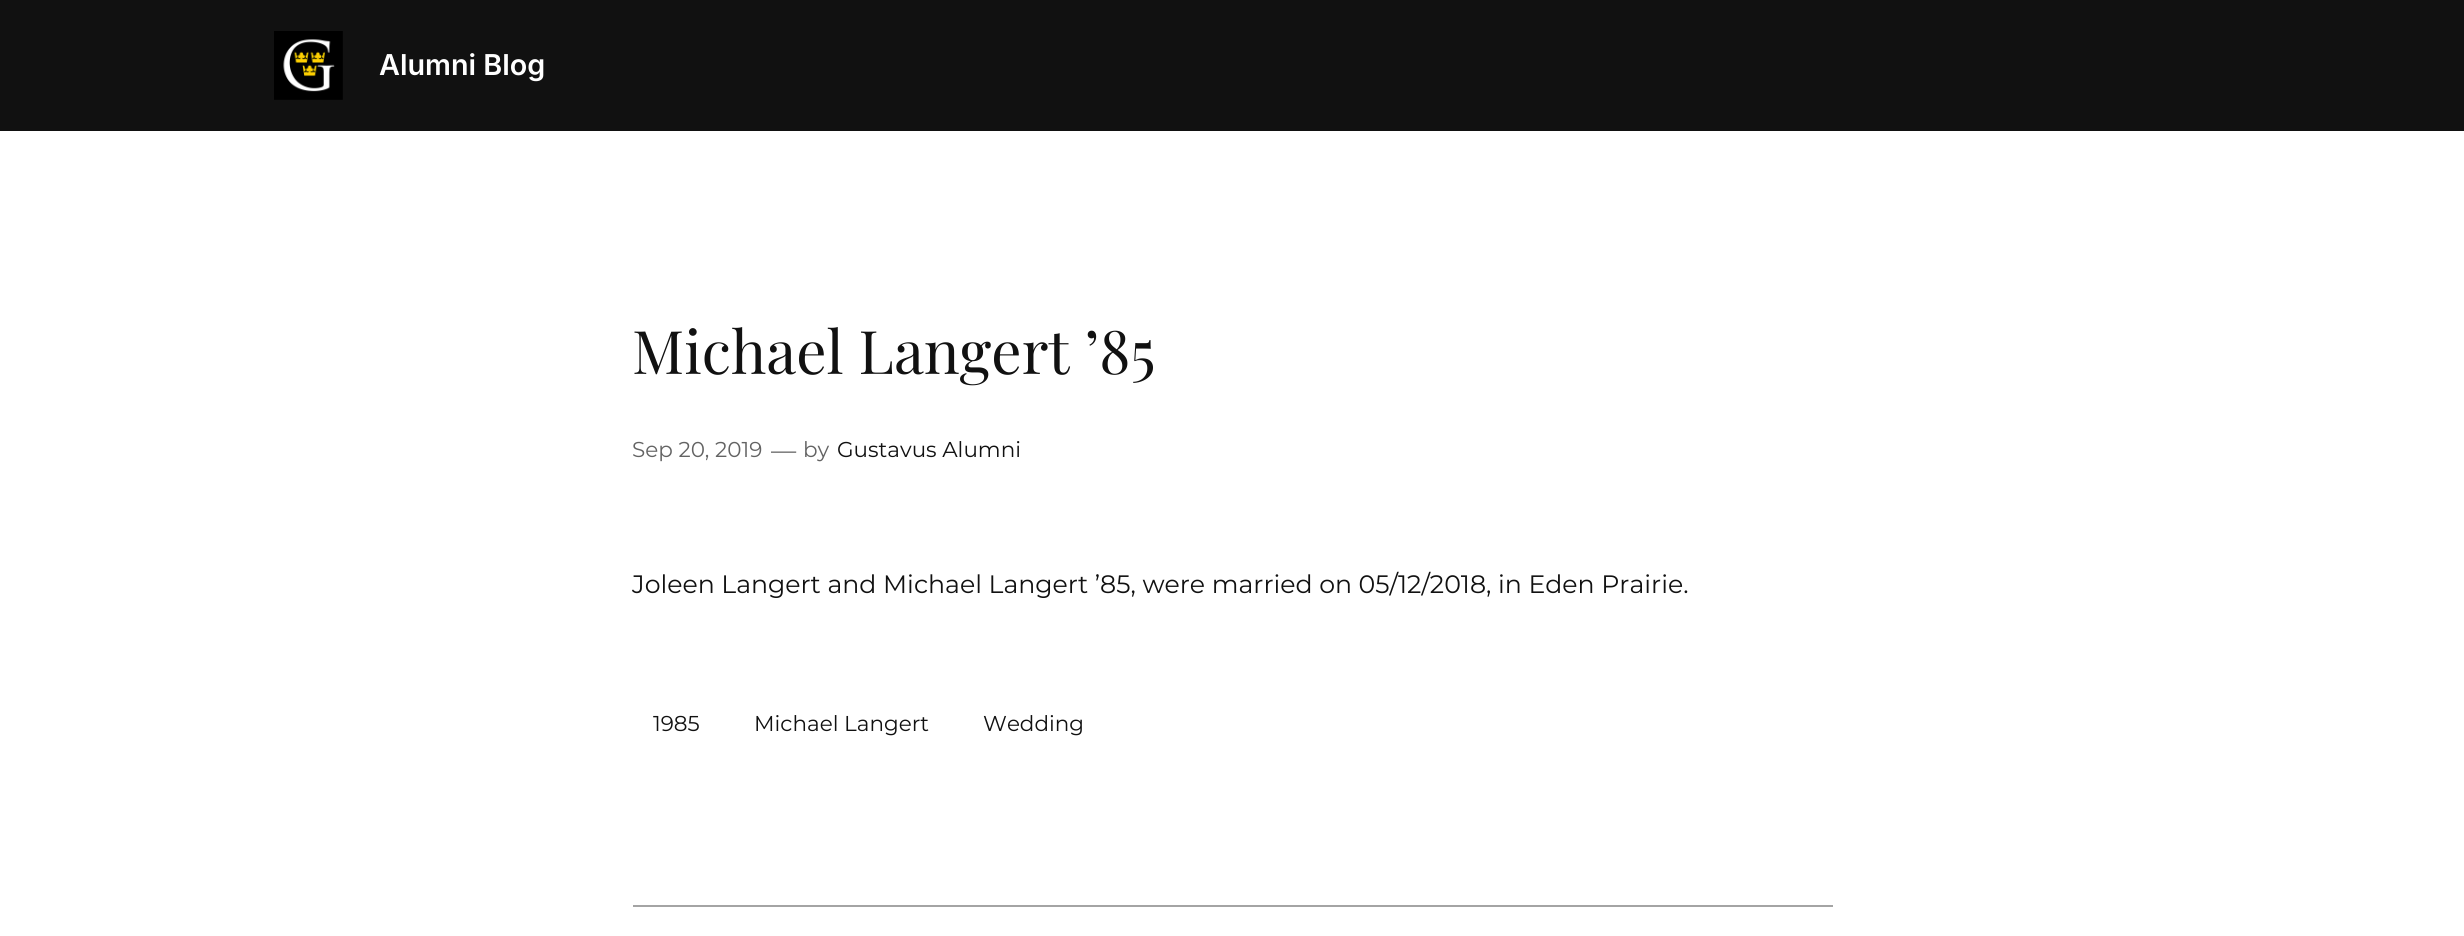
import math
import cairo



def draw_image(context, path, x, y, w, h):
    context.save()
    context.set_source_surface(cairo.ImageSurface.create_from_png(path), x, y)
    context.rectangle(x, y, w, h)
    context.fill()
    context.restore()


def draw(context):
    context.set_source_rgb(1, 1, 1)
    context.paint()
    context.set_source_rgb(17 / 255, 17 / 255, 17 / 255)
    context.rectangle(0, 0, 2464, 131)
    context.fill()
    draw_image(context, "images/1.png", 274, 31, 69, 69)
    context.set_source_rgb(164 / 255, 164 / 255, 164 / 255)
    context.rectangle(633, 905, 1200, 2)
    context.fill()
    context.select_font_face("Inter SemiBold")
    context.set_font_size(28.75)
    context.set_source_rgb(1, 1, 1)
    context.move_to(379, 75)
    context.show_text("Alumni Blog")
    context.select_font_face("Playfair Display")
    context.set_font_size(60)
    context.set_source_rgb(17 / 255, 17 / 255, 17 / 255)
    context.move_to(632, 374)
    context.show_text("Michael Langert ’85")
    context.select_font_face("Montserrat")
    context.set_font_size(21.5)
    context.set_source_rgb(99 / 255, 99 / 255, 99 / 255)
    context.move_to(632, 457)
    context.show_text("Sep 20, 2019")
    context.set_font_size(25.2)
    context.move_to(771, 459)
    context.show_text("—")
    context.set_font_size(21.5)
    context.move_to(803, 457)
    context.show_text("by")
    context.set_source_rgb(17 / 255, 17 / 255, 17 / 255)
    context.move_to(837, 457)
    context.show_text("Gustavus Alumni")
    context.set_font_size(25.2)
    context.move_to(632, 593)
    context.show_text("Joleen Langert and Michael Langert ’85, were married on 05/12/2018, in Eden Prairie.")
    context.set_font_size(21.5)
    context.move_to(653, 731)
    context.show_text("1985")
    context.move_to(754, 731)
    context.show_text("Michael Langert")
    context.move_to(983, 731)
    context.show_text("Wedding")


surface = cairo.ImageSurface(cairo.Format.RGB24, 2464, 936)
context = cairo.Context(surface)
options = cairo.FontOptions()
options.set_hint_metrics(cairo.HintMetrics.OFF)
options.set_hint_style(cairo.HintStyle.NONE)
context.set_font_options(options)
context.set_miter_limit(4)
draw(context)
surface.write_to_png("out.png")
